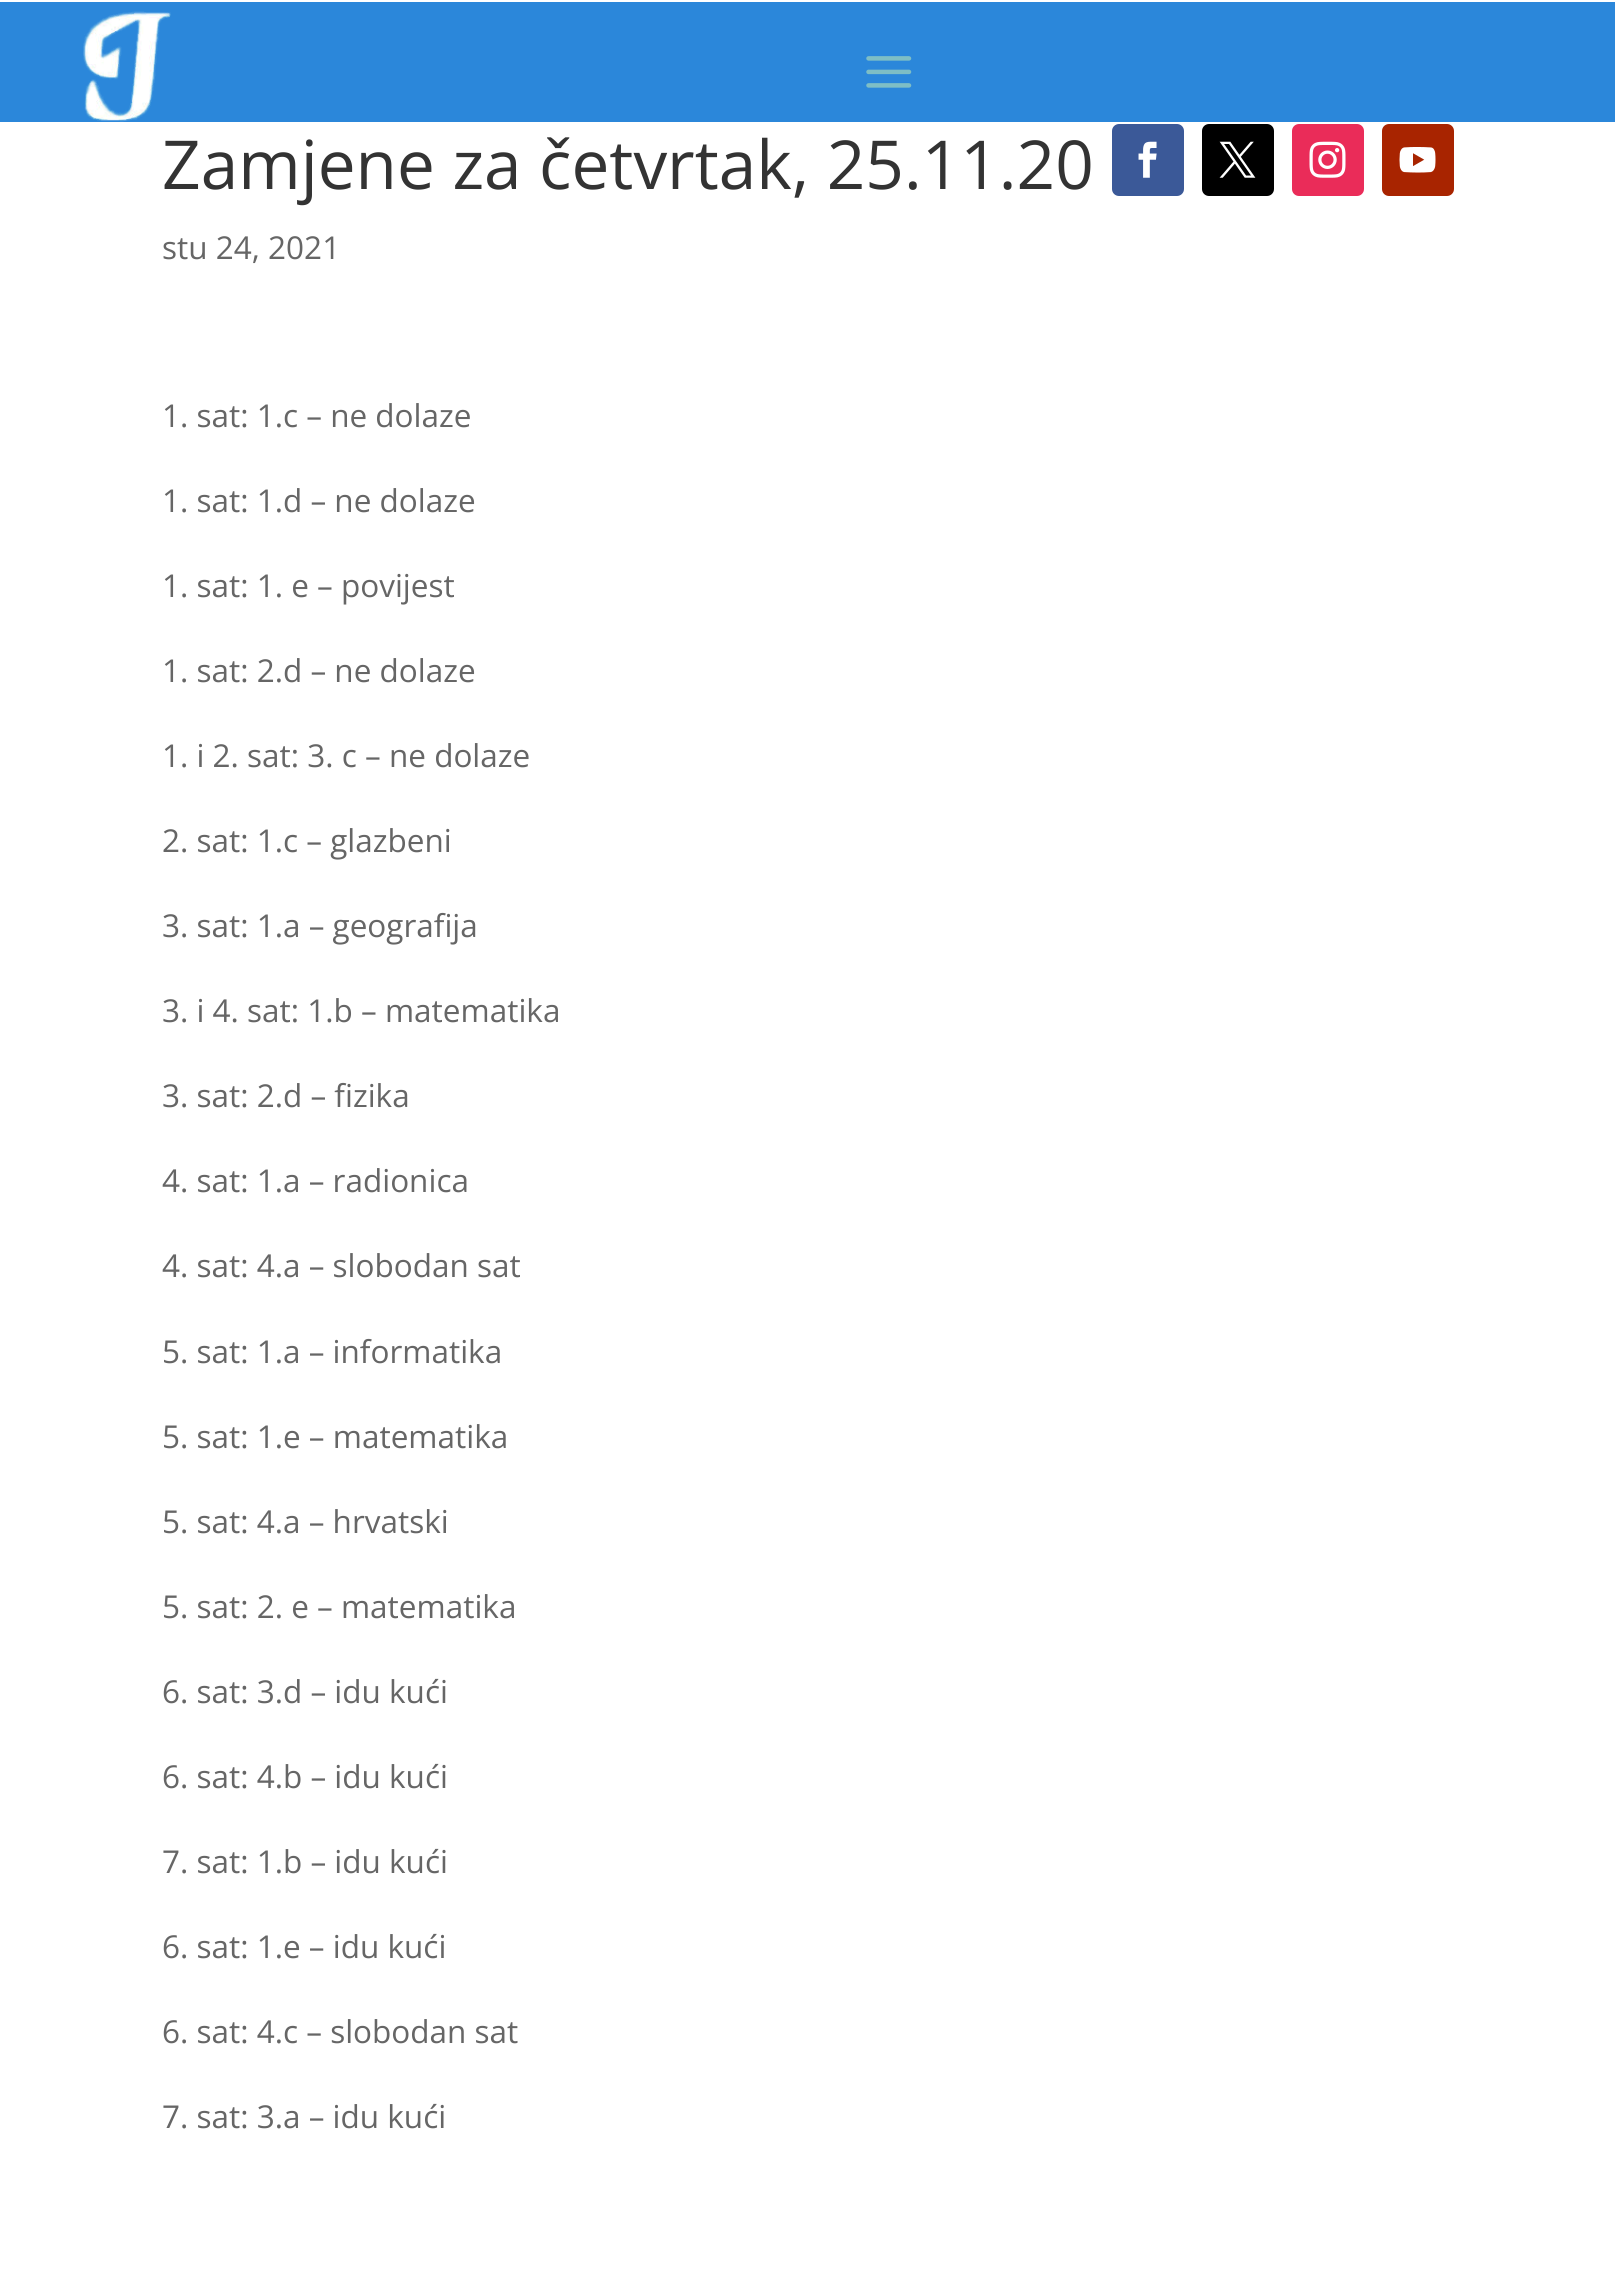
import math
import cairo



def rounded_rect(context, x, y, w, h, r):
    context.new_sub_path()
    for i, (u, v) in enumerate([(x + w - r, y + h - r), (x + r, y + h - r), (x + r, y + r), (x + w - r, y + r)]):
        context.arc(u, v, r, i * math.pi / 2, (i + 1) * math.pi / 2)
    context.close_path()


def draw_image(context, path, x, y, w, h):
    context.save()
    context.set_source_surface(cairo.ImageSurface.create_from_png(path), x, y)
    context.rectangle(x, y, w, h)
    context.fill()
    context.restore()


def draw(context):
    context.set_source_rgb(1, 1, 1)
    context.paint()
    context.set_source_rgb(43 / 255, 135 / 255, 218 / 255)
    context.rectangle(0, 2, 1615, 120)
    context.fill()
    draw_image(context, "images/1.png", 83, 11, 88, 111)
    draw_image(context, "images/2.png", 866, 56, 46, 32)
    context.set_source_rgb(59 / 255, 89 / 255, 152 / 255)
    rounded_rect(context, 1112, 124, 72, 72, 7)
    context.fill()
    draw_image(context, "images/3.png", 1138, 141, 19, 37)
    context.set_source_rgb(0, 0, 0)
    rounded_rect(context, 1202, 124, 72, 72, 7)
    context.fill()
    draw_image(context, "images/4.png", 1219, 141, 37, 37)
    context.set_source_rgb(234 / 255, 44 / 255, 89 / 255)
    rounded_rect(context, 1292, 124, 72, 72, 7)
    context.fill()
    draw_image(context, "images/5.png", 1309, 141, 37, 37)
    context.set_source_rgb(168 / 255, 36 / 255, 0)
    rounded_rect(context, 1382, 124, 72, 72, 7)
    context.fill()
    draw_image(context, "images/6.png", 1399, 147, 37, 26)
    context.select_font_face("Open Sans")
    context.set_font_size(67.5)
    context.set_source_rgb(51 / 255, 51 / 255, 51 / 255)
    context.move_to(162, 189)
    context.show_text("Zamjene za četvrtak, 25.11.20")
    context.set_font_size(31.5)
    context.set_source_rgb(102 / 255, 102 / 255, 102 / 255)
    context.move_to(162, 259)
    context.show_text("stu 24, 2021")
    context.move_to(162, 427)
    context.show_text("1. sat: 1.c – ne dolaze")
    context.move_to(162, 512)
    context.show_text("1. sat: 1.d – ne dolaze")
    context.move_to(162, 597)
    context.show_text("1. sat: 1. e – povijest")
    context.move_to(162, 682)
    context.show_text("1. sat: 2.d – ne dolaze")
    context.move_to(162, 767)
    context.show_text("1. i 2. sat: 3. c – ne dolaze")
    context.move_to(162, 852)
    context.show_text("2. sat: 1.c – glazbeni")
    context.move_to(162, 937)
    context.show_text("3. sat: 1.a – geografija")
    context.move_to(162, 1022)
    context.show_text("3. i 4. sat: 1.b – matematika")
    context.move_to(162, 1107)
    context.show_text("3. sat: 2.d – fizika")
    context.move_to(162, 1192)
    context.show_text("4. sat: 1.a – radionica")
    context.move_to(162, 1277)
    context.show_text("4. sat: 4.a – slobodan sat")
    context.move_to(162, 1363)
    context.show_text("5. sat: 1.a – informatika")
    context.move_to(162, 1448)
    context.show_text("5. sat: 1.e – matematika")
    context.move_to(162, 1533)
    context.show_text("5. sat: 4.a – hrvatski")
    context.move_to(162, 1618)
    context.show_text("5. sat: 2. e – matematika")
    context.move_to(162, 1703)
    context.show_text("6. sat: 3.d – idu kući")
    context.move_to(162, 1788)
    context.show_text("6. sat: 4.b – idu kući")
    context.move_to(162, 1873)
    context.show_text("7. sat: 1.b – idu kući")
    context.move_to(162, 1958)
    context.show_text("6. sat: 1.e – idu kući")
    context.move_to(162, 2043)
    context.show_text("6. sat: 4.c – slobodan sat")
    context.move_to(162, 2128)
    context.show_text("7. sat: 3.a – idu kući")


surface = cairo.ImageSurface(cairo.Format.RGB24, 1615, 2291)
context = cairo.Context(surface)
options = cairo.FontOptions()
options.set_hint_metrics(cairo.HintMetrics.OFF)
options.set_hint_style(cairo.HintStyle.NONE)
context.set_font_options(options)
context.set_miter_limit(4)
draw(context)
surface.write_to_png("out.png")
